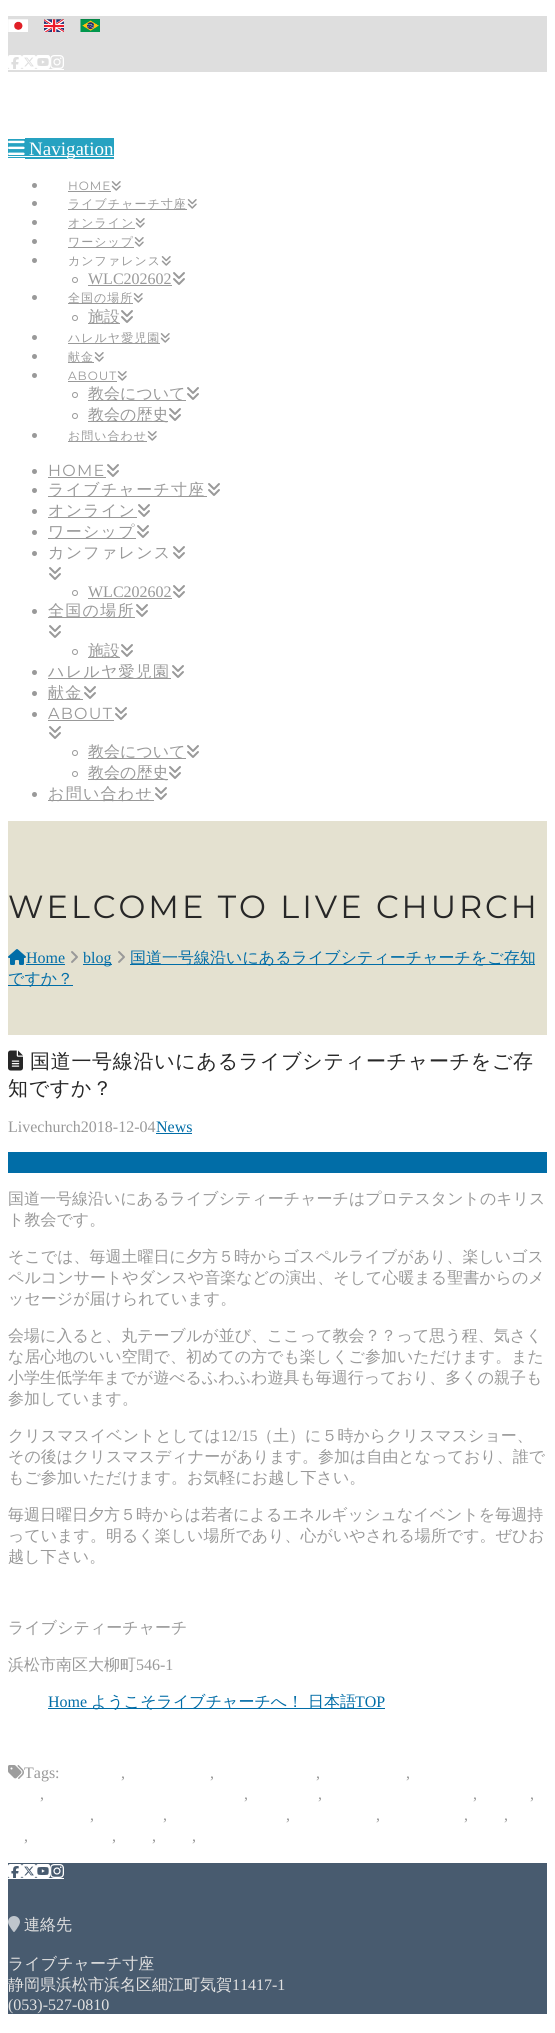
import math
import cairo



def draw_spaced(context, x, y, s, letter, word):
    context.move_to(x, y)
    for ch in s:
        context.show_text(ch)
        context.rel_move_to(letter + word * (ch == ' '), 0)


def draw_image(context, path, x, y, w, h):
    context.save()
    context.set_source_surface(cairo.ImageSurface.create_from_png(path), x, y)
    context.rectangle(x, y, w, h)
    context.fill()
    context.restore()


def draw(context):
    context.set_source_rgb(1, 1, 1)
    context.paint()
    context.set_source_rgb(222 / 255, 222 / 255, 222 / 255)
    context.rectangle(8, 16, 539, 56)
    context.fill()
    draw_image(context, "images/1.png", 8, 19, 20, 13)
    draw_image(context, "images/2.png", 44, 19, 20, 13)
    draw_image(context, "images/3.png", 80, 19, 20, 13)
    context.set_source_rgb(1, 1, 1)
    context.rectangle(8, 69, 56, 1)
    context.fill()
    draw_image(context, "images/4.png", 8, 55, 14, 14)
    draw_image(context, "images/5.png", 22, 55, 14, 14)
    draw_image(context, "images/6.png", 36, 55, 14, 14)
    draw_image(context, "images/7.png", 50, 55, 14, 14)
    context.set_source_rgb(38 / 255, 162 / 255, 193 / 255)
    context.rectangle(8, 139, 17, 19)
    context.fill()
    context.rectangle(25, 138, 89, 21)
    context.fill()
    context.set_source_rgb(1, 1, 1)
    context.rectangle(8, 156, 106, 1)
    context.fill()
    draw_image(context, "images/8.png", 8, 140, 17, 15)
    context.set_source_rgb(153 / 255, 153 / 255, 153 / 255)
    context.arc(34.5, 185.5, 2.5, 0, 2 * math.pi)
    context.fill()
    context.rectangle(68, 191, 43, 1)
    context.fill()
    draw_image(context, "images/9.png", 111, 181, 10, 10)
    context.arc(34.5, 203.5, 2.5, 0, 2 * math.pi)
    context.fill()
    context.rectangle(68, 209, 119, 1)
    context.fill()
    draw_image(context, "images/9.png", 187, 199, 10, 10)
    context.arc(34.5, 222.5, 2.5, 0, 2 * math.pi)
    context.fill()
    context.rectangle(68, 228, 67, 1)
    context.fill()
    draw_image(context, "images/9.png", 135, 218, 10, 10)
    context.arc(34.5, 241.5, 2.5, 0, 2 * math.pi)
    context.fill()
    context.rectangle(68, 247, 66, 1)
    context.fill()
    draw_image(context, "images/9.png", 134, 237, 10, 10)
    context.arc(34.5, 260.5, 2.5, 0, 2 * math.pi)
    context.fill()
    draw_image(context, "images/9.png", 161, 256, 10, 10)
    context.arc(75, 280, 2.5, 0, 2 * math.pi)
    context.set_line_width(1)
    context.stroke()
    context.rectangle(88, 285, 84, 1)
    context.fill()
    draw_image(context, "images/10.png", 173, 272, 12, 13)
    context.arc(34.5, 297.5, 2.5, 0, 2 * math.pi)
    context.fill()
    context.rectangle(68, 303, 65, 1)
    context.fill()
    draw_image(context, "images/9.png", 133, 293, 10, 10)
    context.arc(75, 318, 2.5, 0, 2 * math.pi)
    context.stroke()
    context.rectangle(88, 323, 32, 1)
    context.fill()
    draw_image(context, "images/10.png", 121, 310, 12, 13)
    context.arc(34.5, 337.5, 2.5, 0, 2 * math.pi)
    context.fill()
    context.rectangle(68, 343, 92, 1)
    context.fill()
    draw_image(context, "images/9.png", 160, 333, 10, 10)
    context.arc(34.5, 356.5, 2.5, 0, 2 * math.pi)
    context.fill()
    context.rectangle(68, 362, 26, 1)
    context.fill()
    draw_image(context, "images/9.png", 94, 352, 10, 10)
    context.arc(34.5, 375.5, 2.5, 0, 2 * math.pi)
    context.fill()
    context.rectangle(68, 381, 49, 1)
    context.fill()
    draw_image(context, "images/9.png", 117, 371, 10, 10)
    context.arc(75, 395, 2.5, 0, 2 * math.pi)
    context.stroke()
    context.rectangle(88, 400, 98, 1)
    context.fill()
    draw_image(context, "images/10.png", 187, 387, 12, 13)
    context.arc(75, 416, 2.5, 0, 2 * math.pi)
    context.stroke()
    context.rectangle(88, 421, 80, 1)
    context.fill()
    draw_image(context, "images/10.png", 169, 408, 12, 13)
    context.arc(34.5, 435.5, 2.5, 0, 2 * math.pi)
    context.fill()
    context.rectangle(68, 441, 79, 1)
    context.fill()
    draw_image(context, "images/9.png", 147, 431, 10, 10)
    context.arc(34.5, 471.5, 2.5, 0, 2 * math.pi)
    context.fill()
    context.rectangle(48, 477, 58, 1)
    context.fill()
    draw_image(context, "images/10.png", 107, 464, 12, 13)
    context.arc(34.5, 490.5, 2.5, 0, 2 * math.pi)
    context.fill()
    context.rectangle(48, 496, 159, 1)
    context.fill()
    draw_image(context, "images/10.png", 208, 483, 12, 13)
    context.arc(34.5, 511.5, 2.5, 0, 2 * math.pi)
    context.fill()
    context.rectangle(48, 517, 89, 1)
    context.fill()
    draw_image(context, "images/10.png", 138, 504, 12, 13)
    context.arc(34.5, 532.5, 2.5, 0, 2 * math.pi)
    context.fill()
    context.rectangle(48, 538, 88, 1)
    context.fill()
    draw_image(context, "images/10.png", 137, 525, 12, 13)
    context.arc(34.5, 553.5, 2.5, 0, 2 * math.pi)
    context.fill()
    draw_image(context, "images/10.png", 173, 546, 12, 13)
    draw_image(context, "images/10.png", 49, 567, 12, 13)
    context.arc(75, 593, 2.5, 0, 2 * math.pi)
    context.stroke()
    context.rectangle(88, 598, 84, 1)
    context.fill()
    draw_image(context, "images/10.png", 173, 585, 12, 13)
    context.arc(34.5, 611.5, 2.5, 0, 2 * math.pi)
    context.fill()
    context.rectangle(48, 617, 87, 1)
    context.fill()
    draw_image(context, "images/10.png", 136, 604, 12, 13)
    draw_image(context, "images/10.png", 49, 625, 12, 13)
    context.arc(75, 652, 2.5, 0, 2 * math.pi)
    context.stroke()
    context.rectangle(88, 657, 32, 1)
    context.fill()
    draw_image(context, "images/10.png", 121, 644, 12, 13)
    context.arc(34.5, 672.5, 2.5, 0, 2 * math.pi)
    context.fill()
    context.rectangle(48, 678, 123, 1)
    context.fill()
    draw_image(context, "images/10.png", 172, 665, 12, 13)
    context.arc(34.5, 693.5, 2.5, 0, 2 * math.pi)
    context.fill()
    context.rectangle(48, 699, 35, 1)
    context.fill()
    draw_image(context, "images/10.png", 84, 686, 12, 13)
    context.arc(34.5, 714.5, 2.5, 0, 2 * math.pi)
    context.fill()
    context.rectangle(48, 720, 66, 1)
    context.fill()
    draw_image(context, "images/10.png", 115, 707, 12, 13)
    draw_image(context, "images/10.png", 49, 726, 12, 13)
    context.arc(75, 753, 2.5, 0, 2 * math.pi)
    context.stroke()
    context.rectangle(88, 758, 98, 1)
    context.fill()
    draw_image(context, "images/10.png", 187, 745, 12, 13)
    context.arc(75, 774, 2.5, 0, 2 * math.pi)
    context.stroke()
    context.rectangle(88, 779, 80, 1)
    context.fill()
    draw_image(context, "images/10.png", 169, 766, 12, 13)
    context.arc(34.5, 794.5, 2.5, 0, 2 * math.pi)
    context.fill()
    context.rectangle(48, 800, 106, 1)
    context.fill()
    draw_image(context, "images/10.png", 155, 787, 12, 13)
    context.set_source_rgb(228 / 255, 225 / 255, 208 / 255)
    context.rectangle(8, 821, 539, 214)
    context.fill()
    draw_image(context, "images/11.png", 8, 949, 18, 16)
    context.set_source_rgb(1 / 255, 109 / 255, 167 / 255)
    context.rectangle(26, 964, 39, 1)
    context.fill()
    draw_image(context, "images/12.png", 71, 951, 7, 12)
    context.rectangle(83, 964, 29, 1)
    context.fill()
    draw_image(context, "images/12.png", 118, 951, 7, 12)
    context.rectangle(130, 964, 405, 1)
    context.fill()
    context.rectangle(8, 985, 65, 1)
    context.fill()
    draw_image(context, "images/13.png", 8, 1050, 15, 21)
    context.rectangle(156, 1133, 36, 1)
    context.fill()
    context.rectangle(8, 1152, 539, 21)
    context.fill()
    context.rectangle(48, 1708, 337, 1)
    context.fill()
    draw_image(context, "images/14.png", 8, 1765, 16, 14)
    context.set_source_rgb(72 / 255, 91 / 255, 111 / 255)
    context.rectangle(8, 1863, 539, 151)
    context.fill()
    context.set_source_rgb(1, 1, 1)
    context.rectangle(8, 1878, 56, 1)
    context.fill()
    draw_image(context, "images/15.png", 8, 1864, 14, 14)
    draw_image(context, "images/16.png", 22, 1864, 14, 14)
    draw_image(context, "images/17.png", 36, 1864, 14, 14)
    draw_image(context, "images/18.png", 50, 1864, 14, 14)
    draw_image(context, "images/19.png", 8, 1916, 12, 16)
    context.select_font_face("Liberation Serif")
    context.set_font_size(19)
    context.move_to(29, 155)
    context.show_text("Navigation")
    context.select_font_face("Montserrat")
    context.set_font_size(12)
    context.set_source_rgb(153 / 255, 153 / 255, 153 / 255)
    draw_spaced(context, 68, 190, "HOME", 1, 0)
    context.select_font_face("WenQuanYi Zen Hei Medium")
    draw_spaced(context, 68, 208, "ライブチャーチ寸座", 1, 0)
    draw_spaced(context, 68, 227, "オンライン", 1, 0)
    draw_spaced(context, 68, 246, "ワーシップ", 1, 0)
    draw_spaced(context, 68, 265, "カンファレンス", 1, 0)
    context.select_font_face("Liberation Serif")
    context.set_font_size(16)
    context.move_to(88, 284)
    context.show_text("WLC202602")
    context.select_font_face("WenQuanYi Zen Hei Medium")
    context.set_font_size(12)
    draw_spaced(context, 68, 302, "全国の場所", 1, 0)
    context.set_font_size(16)
    context.move_to(88, 322)
    context.show_text("施設")
    context.set_font_size(12)
    draw_spaced(context, 68, 342, "ハレルヤ愛児園", 1, 0)
    draw_spaced(context, 68, 361, "献金", 1, 0)
    context.select_font_face("Montserrat")
    draw_spaced(context, 68, 380, "ABOUT", 1, 0)
    context.select_font_face("WenQuanYi Zen Hei Medium")
    context.set_font_size(16)
    context.move_to(88, 399)
    context.show_text("教会について")
    context.move_to(88, 420)
    context.show_text("教会の歴史")
    context.set_font_size(12)
    draw_spaced(context, 68, 440, "お問い合わせ", 1, 0)
    context.select_font_face("Montserrat")
    context.set_font_size(16)
    draw_spaced(context, 48, 476, "HOME", 1.25, 0)
    context.select_font_face("WenQuanYi Zen Hei Medium")
    draw_spaced(context, 48, 495, "ライブチャーチ寸座", 1.25, 0)
    draw_spaced(context, 48, 516, "オンライン", 1.25, 0)
    draw_spaced(context, 48, 537, "ワーシップ", 1.25, 0)
    draw_spaced(context, 48, 558, "カンファレンス", 1.25, 0)
    context.select_font_face("Liberation Serif")
    context.move_to(88, 597)
    context.show_text("WLC202602")
    context.select_font_face("WenQuanYi Zen Hei Medium")
    draw_spaced(context, 48, 616, "全国の場所", 1.25, 0)
    context.move_to(88, 656)
    context.show_text("施設")
    draw_spaced(context, 48, 677, "ハレルヤ愛児園", 1.25, 0)
    draw_spaced(context, 48, 698, "献金", 1.25, 0)
    context.select_font_face("Montserrat")
    draw_spaced(context, 48, 719, "ABOUT", 1.25, 0)
    context.select_font_face("WenQuanYi Zen Hei Medium")
    context.move_to(88, 757)
    context.show_text("教会について")
    context.move_to(88, 778)
    context.show_text("教会の歴史")
    draw_spaced(context, 48, 799, "お問い合わせ", 1.25, 0)
    context.select_font_face("Montserrat")
    context.set_font_size(32)
    context.set_source_rgb(39 / 255, 39 / 255, 39 / 255)
    draw_spaced(context, 8, 918, "WELCOME TO LIVE CHURCH", 3, 0)
    context.select_font_face("Liberation Serif")
    context.set_font_size(16)
    context.set_source_rgb(1 / 255, 109 / 255, 167 / 255)
    context.move_to(26, 963)
    context.show_text("Home")
    context.move_to(83, 963)
    context.show_text("blog")
    context.select_font_face("WenQuanYi Zen Hei Medium")
    context.move_to(130, 963)
    context.show_text("国道一号線沿いにあるライブシティーチャーチをご存知")
    context.move_to(8, 984)
    context.show_text("ですか？")
    context.set_font_size(20)
    context.set_source_rgb(39 / 255, 39 / 255, 39 / 255)
    draw_spaced(context, 30, 1068, "国道一号線沿いにあるライブシティーチャーチをご存", 0.7, 0)
    draw_spaced(context, 8, 1095, "知ですか？", 0.7, 0)
    context.select_font_face("Liberation Serif")
    context.set_font_size(16)
    context.set_source_rgb(153 / 255, 153 / 255, 153 / 255)
    context.move_to(8, 1132)
    context.show_text("Livechurch2018-12-04")
    context.set_source_rgb(1 / 255, 109 / 255, 167 / 255)
    context.move_to(156, 1132)
    context.show_text("News")
    context.select_font_face("WenQuanYi Zen Hei Medium")
    context.set_source_rgb(153 / 255, 153 / 255, 153 / 255)
    context.move_to(8, 1204)
    context.show_text("国道一号線沿いにあるライブシティーチャーチはプロテスタントのキリス")
    context.move_to(8, 1225)
    context.show_text("ト教会です。")
    context.move_to(8, 1262)
    context.show_text("そこでは、毎週土曜日に夕方５時からゴスペルライブがあり、楽しいゴス")
    context.move_to(8, 1283)
    context.show_text("ペルコンサートやダンスや音楽などの演出、そして心暖まる聖書からのメ")
    context.move_to(8, 1304)
    context.show_text("ッセージが届けられています。")
    context.move_to(8, 1341)
    context.show_text("会場に入ると、丸テーブルが並び、ここって教会？？って思う程、気さく")
    context.move_to(8, 1362)
    context.show_text("な居心地のいい空間で、初めての方でも楽しくご参加いただけます。また")
    context.move_to(8, 1383)
    context.show_text("小学生低学年までが遊べるふわふわ遊具も毎週行っており、多くの親子も")
    context.move_to(8, 1404)
    context.show_text("参加しています。")
    context.move_to(8, 1441)
    context.show_text("クリスマスイベントとしては")
    context.select_font_face("Liberation Serif")
    context.move_to(221, 1441)
    context.show_text("12/15")
    context.select_font_face("WenQuanYi Zen Hei Medium")
    context.move_to(257, 1441)
    context.show_text("（土）に５時からクリスマスショー、")
    context.move_to(8, 1462)
    context.show_text("その後はクリスマスディナーがあります。参加は自由となっており、誰で")
    context.move_to(8, 1483)
    context.show_text("もご参加いただけます。お気軽にお越し下さい。")
    context.move_to(8, 1520)
    context.show_text("毎週日曜日夕方５時からは若者によるエネルギッシュなイベントを毎週持")
    context.move_to(8, 1541)
    context.show_text("っています。明るく楽しい場所であり、心がいやされる場所です。ぜひお")
    context.move_to(8, 1562)
    context.show_text("越し下さい。")
    context.move_to(8, 1633)
    context.show_text("ライブシティーチャーチ")
    context.move_to(8, 1670)
    context.show_text("浜松市南区大柳町")
    context.select_font_face("Liberation Serif")
    context.move_to(136, 1670)
    context.show_text("546-1")
    context.set_source_rgb(1 / 255, 109 / 255, 167 / 255)
    context.move_to(48, 1707)
    context.show_text("Home")
    context.select_font_face("WenQuanYi Zen Hei Medium")
    context.move_to(91, 1707)
    context.show_text("ようこそライブチャーチへ！ 日本語")
    context.select_font_face("Liberation Serif")
    context.move_to(355, 1707)
    context.show_text("TOP")
    context.set_source_rgb(153 / 255, 153 / 255, 153 / 255)
    context.move_to(24, 1778)
    context.show_text("Tags:")
    context.move_to(121, 1778)
    context.show_text(",")
    context.move_to(210, 1778)
    context.show_text(",")
    context.move_to(316, 1778)
    context.show_text(",")
    context.move_to(406, 1778)
    context.show_text(",")
    context.move_to(40, 1799)
    context.show_text(",")
    context.move_to(244, 1799)
    context.show_text(",")
    context.move_to(318, 1799)
    context.show_text(",")
    context.move_to(473, 1799)
    context.show_text(",")
    context.move_to(530, 1799)
    context.show_text(",")
    context.move_to(90, 1820)
    context.show_text(",")
    context.move_to(163, 1820)
    context.show_text(",")
    context.move_to(286, 1820)
    context.show_text(",")
    context.move_to(376, 1820)
    context.show_text(",")
    context.move_to(464, 1820)
    context.show_text(",")
    context.move_to(504, 1820)
    context.show_text(",")
    context.move_to(24, 1841)
    context.show_text(",")
    context.move_to(112, 1841)
    context.show_text(",")
    context.move_to(152, 1841)
    context.show_text(",")
    context.move_to(192, 1841)
    context.show_text(",")
    context.select_font_face("WenQuanYi Zen Hei Medium")
    context.set_source_rgb(225 / 255, 225 / 255, 225 / 255)
    context.move_to(24, 1930)
    context.show_text("連絡先")
    context.move_to(8, 1969)
    context.show_text("ライブチャーチ寸座")
    context.move_to(8, 1990)
    context.show_text("静岡県浜松市浜名区細江町気賀")
    context.select_font_face("Liberation Serif")
    context.move_to(232, 1990)
    context.show_text("11417-1")
    context.move_to(8, 2010)
    context.show_text("(053)-527-0810")


surface = cairo.ImageSurface(cairo.Format.RGB24, 555, 2033)
context = cairo.Context(surface)
options = cairo.FontOptions()
options.set_hint_metrics(cairo.HintMetrics.OFF)
options.set_hint_style(cairo.HintStyle.NONE)
context.set_font_options(options)
context.set_miter_limit(4)
draw(context)
surface.write_to_png("out.png")
